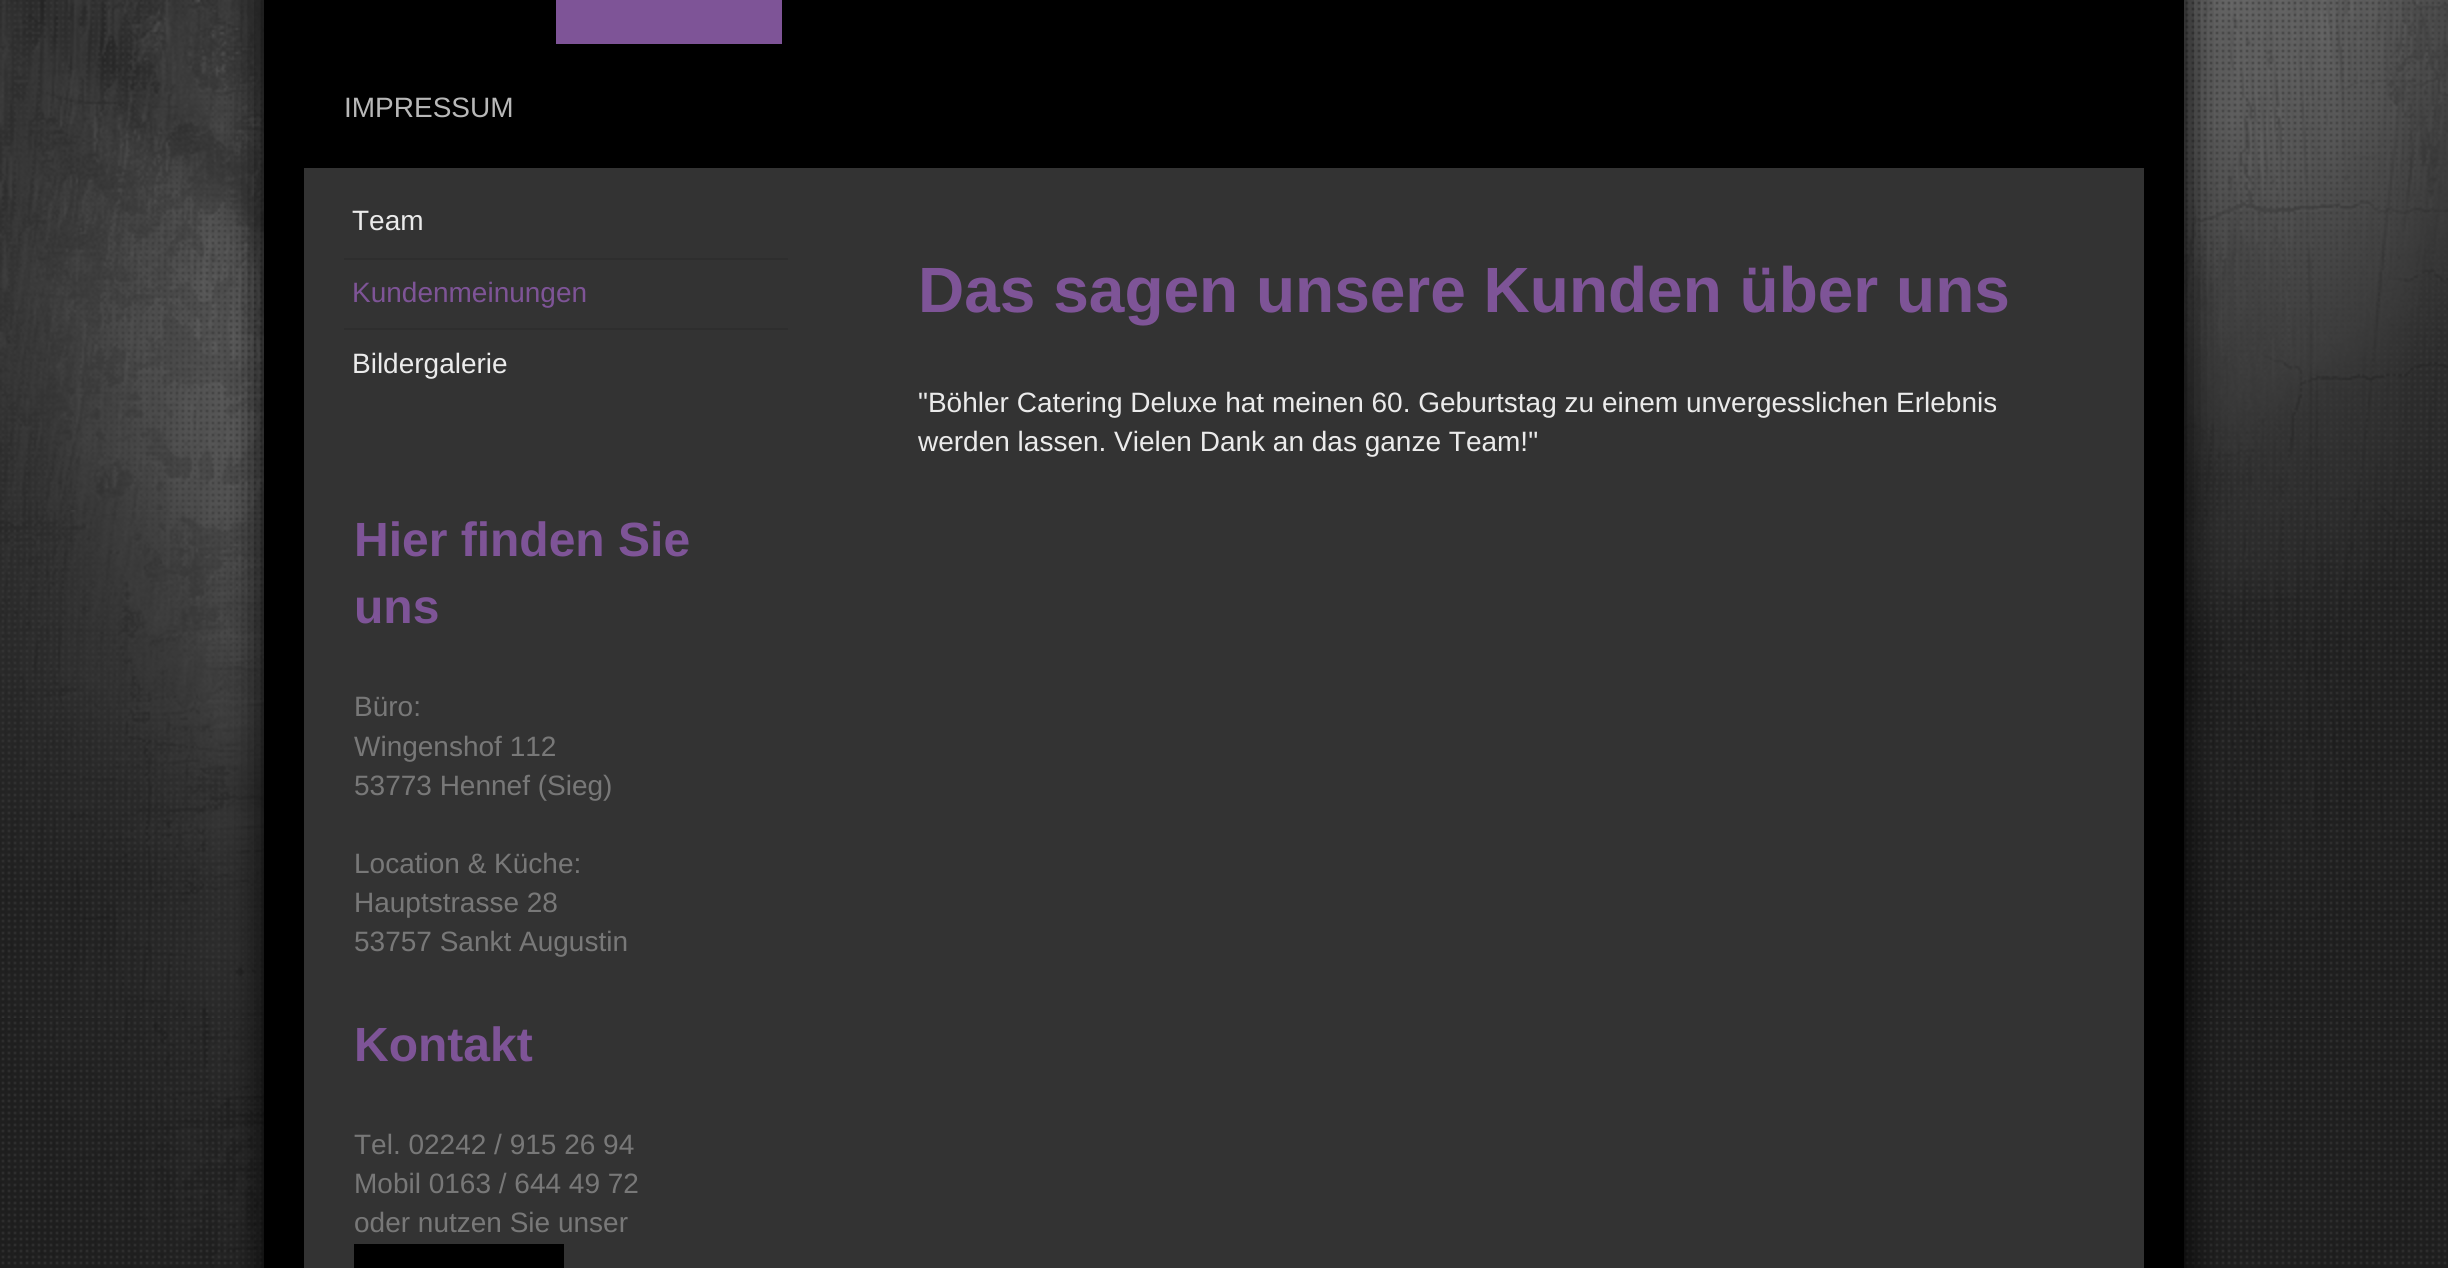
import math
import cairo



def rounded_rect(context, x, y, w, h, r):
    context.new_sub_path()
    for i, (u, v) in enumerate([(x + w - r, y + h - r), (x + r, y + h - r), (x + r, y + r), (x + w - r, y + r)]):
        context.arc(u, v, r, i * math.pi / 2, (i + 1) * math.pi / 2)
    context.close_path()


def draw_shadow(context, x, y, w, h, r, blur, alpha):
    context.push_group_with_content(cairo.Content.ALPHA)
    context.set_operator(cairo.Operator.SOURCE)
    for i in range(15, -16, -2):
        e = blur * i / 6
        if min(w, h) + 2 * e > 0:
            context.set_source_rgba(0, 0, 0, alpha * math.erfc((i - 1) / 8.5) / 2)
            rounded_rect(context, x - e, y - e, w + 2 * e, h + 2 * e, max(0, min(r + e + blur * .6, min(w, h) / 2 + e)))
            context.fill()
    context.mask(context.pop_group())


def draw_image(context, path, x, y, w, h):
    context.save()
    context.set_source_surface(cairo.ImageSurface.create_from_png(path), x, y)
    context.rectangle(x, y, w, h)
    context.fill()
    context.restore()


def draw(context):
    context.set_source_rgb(1, 1, 1)
    context.paint()
    draw_image(context, "images/1.png", 0, 0, 2448, 1268)
    context.set_source_rgb(0, 0, 0)
    draw_shadow(context, 264, -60, 1920, 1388, 0, 20, 1)
    context.set_source_rgb(0, 0, 0)
    context.rectangle(264, 0, 1920, 1268)
    context.fill()
    context.set_source_rgb(126 / 255, 84 / 255, 151 / 255)
    context.rectangle(556, 0, 226, 44)
    context.fill()
    context.set_source_rgb(51 / 255, 51 / 255, 51 / 255)
    context.rectangle(304, 168, 1840, 1100)
    context.fill()
    context.set_source_rgb(46 / 255, 46 / 255, 46 / 255)
    context.rectangle(344, 258, 444, 2)
    context.fill()
    context.rectangle(344, 328, 444, 2)
    context.fill()
    context.set_source_rgb(0, 0, 0)
    context.rectangle(354, 1244, 210, 24)
    context.fill()
    context.select_font_face("Liberation Sans")
    context.set_font_size(28)
    context.set_source_rgb(184 / 255, 184 / 255, 184 / 255)
    context.move_to(344, 117)
    context.show_text("IMPRESSUM")
    context.set_source_rgb(235 / 255, 235 / 255, 235 / 255)
    context.move_to(352, 230)
    context.show_text("Team")
    context.set_source_rgb(126 / 255, 84 / 255, 151 / 255)
    context.move_to(352, 302)
    context.show_text("Kundenmeinungen")
    context.set_source_rgb(235 / 255, 235 / 255, 235 / 255)
    context.move_to(352, 373)
    context.show_text("Bildergalerie")
    context.select_font_face("Liberation Sans", cairo.FontSlant.NORMAL, cairo.FontWeight.BOLD)
    context.set_font_size(48)
    context.set_source_rgb(126 / 255, 84 / 255, 151 / 255)
    context.move_to(354, 556)
    context.show_text("Hier finden Sie")
    context.move_to(354, 623)
    context.show_text("uns")
    context.select_font_face("Liberation Sans")
    context.set_font_size(28)
    context.set_source_rgb(120 / 255, 120 / 255, 120 / 255)
    context.move_to(354, 716)
    context.show_text("Büro:")
    context.move_to(354, 756)
    context.show_text("Wingenshof 112")
    context.move_to(354, 795)
    context.show_text("53773 Hennef (Sieg)")
    context.move_to(354, 873)
    context.show_text("Location & Küche:")
    context.move_to(354, 912)
    context.show_text("Hauptstrasse 28")
    context.move_to(354, 951)
    context.show_text("53757 Sankt Augustin")
    context.select_font_face("Liberation Sans", cairo.FontSlant.NORMAL, cairo.FontWeight.BOLD)
    context.set_font_size(48)
    context.set_source_rgb(126 / 255, 84 / 255, 151 / 255)
    context.move_to(354, 1061)
    context.show_text("Kontakt")
    context.select_font_face("Liberation Sans")
    context.set_font_size(28)
    context.set_source_rgb(120 / 255, 120 / 255, 120 / 255)
    context.move_to(354, 1154)
    context.show_text("Tel. 02242 / 915 26 94")
    context.move_to(354, 1193)
    context.show_text("Mobil 0163 / 644 49 72")
    context.move_to(354, 1232)
    context.show_text("oder nutzen Sie unser")
    context.select_font_face("Liberation Sans", cairo.FontSlant.NORMAL, cairo.FontWeight.BOLD)
    context.set_font_size(64)
    context.set_source_rgb(126 / 255, 84 / 255, 151 / 255)
    context.move_to(918, 312)
    context.show_text("Das sagen unsere Kunden über uns")
    context.select_font_face("Liberation Sans")
    context.set_font_size(28)
    context.set_source_rgb(235 / 255, 235 / 255, 235 / 255)
    context.move_to(918, 412)
    context.show_text("\"Böhler Catering Deluxe hat meinen 60. Geburtstag zu einem unvergesslichen Erlebnis")
    context.move_to(918, 451)
    context.show_text("werden lassen. Vielen Dank an das ganze Team!\"")


surface = cairo.ImageSurface(cairo.Format.RGB24, 2448, 1268)
context = cairo.Context(surface)
options = cairo.FontOptions()
options.set_hint_metrics(cairo.HintMetrics.OFF)
options.set_hint_style(cairo.HintStyle.NONE)
context.set_font_options(options)
context.set_miter_limit(4)
draw(context)
surface.write_to_png("out.png")
